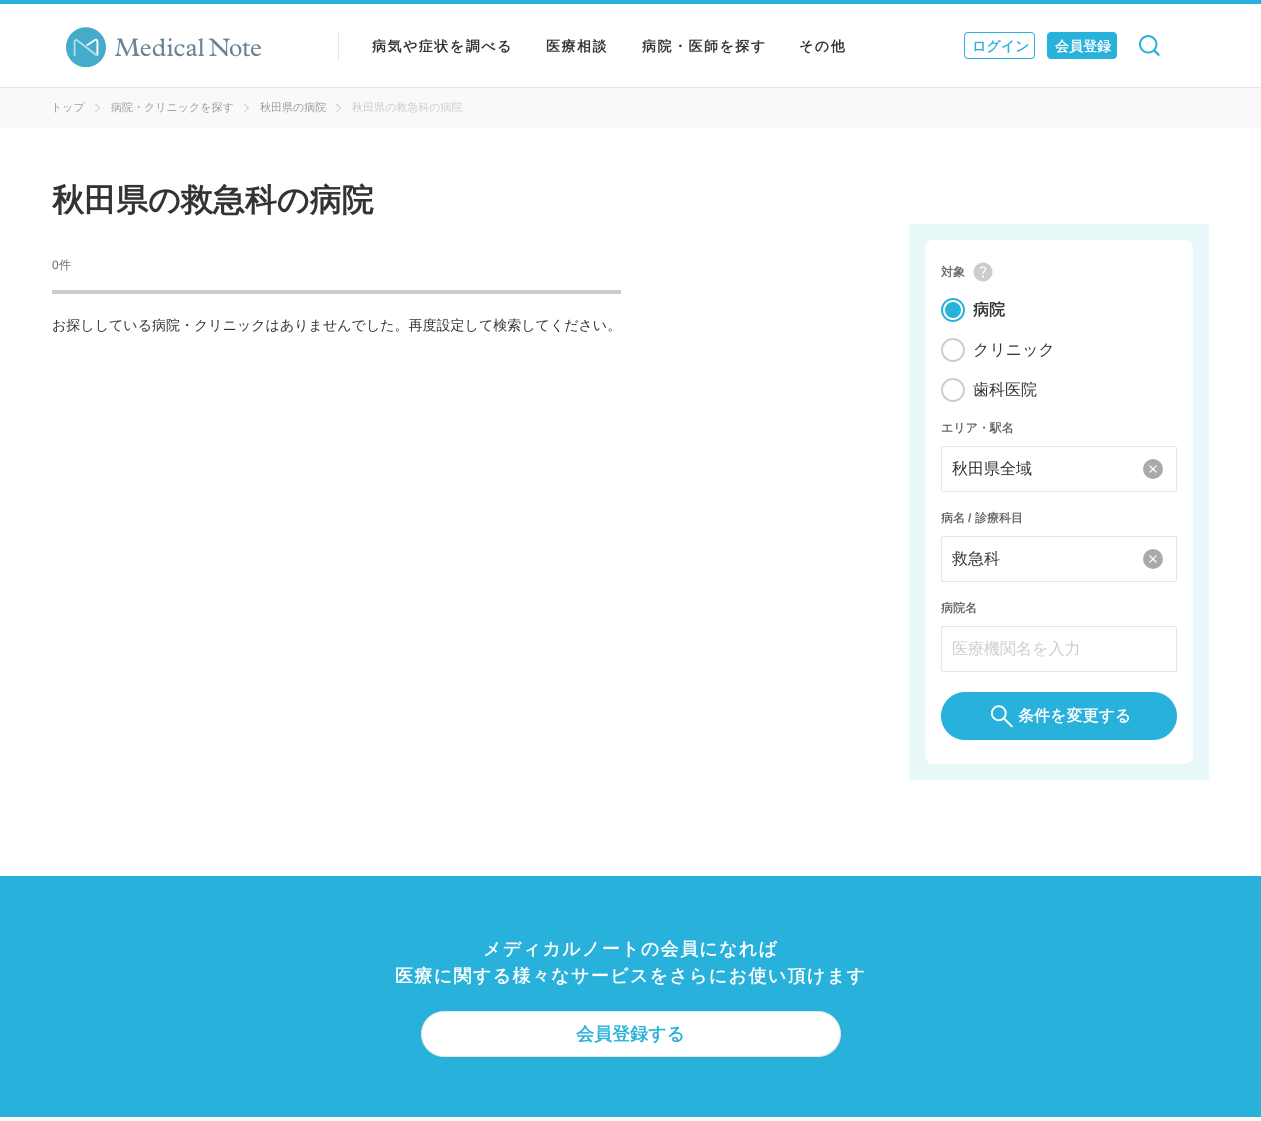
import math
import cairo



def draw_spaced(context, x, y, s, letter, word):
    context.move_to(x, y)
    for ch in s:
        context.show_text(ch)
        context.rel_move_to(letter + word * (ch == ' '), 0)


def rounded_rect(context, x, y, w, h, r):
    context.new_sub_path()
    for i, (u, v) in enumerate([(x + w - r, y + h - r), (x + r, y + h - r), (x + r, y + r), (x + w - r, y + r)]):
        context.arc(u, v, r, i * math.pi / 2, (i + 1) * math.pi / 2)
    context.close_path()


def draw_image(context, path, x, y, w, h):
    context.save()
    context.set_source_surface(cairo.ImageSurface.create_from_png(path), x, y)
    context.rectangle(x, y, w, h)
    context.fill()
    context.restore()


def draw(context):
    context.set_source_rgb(1, 1, 1)
    context.paint()
    context.set_source_rgb(39 / 255, 177 / 255, 219 / 255)
    context.rectangle(0, 0, 1261, 4)
    context.fill()
    context.set_source_rgb(229 / 255, 229 / 255, 229 / 255)
    context.rectangle(0, 87, 1261, 1)
    context.fill()
    draw_image(context, "images/1.png", 66, 27, 195, 40)
    context.rectangle(338, 31, 1, 30)
    context.fill()
    rounded_rect(context, 964.5, 32.5, 70, 26, 3.5)
    context.set_source_rgb(39 / 255, 177 / 255, 219 / 255)
    context.set_line_width(1)
    context.stroke()
    rounded_rect(context, 1047.5, 32.5, 69, 26, 3.5)
    context.fill_preserve()
    context.stroke()
    draw_image(context, "images/2.png", 1139, 35, 21, 21)
    context.set_source_rgb(250 / 255, 249 / 255, 249 / 255)
    context.rectangle(0, 88, 1261, 40)
    context.fill()
    context.set_source_rgb(204 / 255, 204 / 255, 204 / 255)
    context.new_path()
    context.move_to(96, 103.5)
    context.line_to(100, 108)
    context.line_to(99.5, 108.5)
    context.line_to(95, 104.5)
    context.close_path()
    context.fill()
    context.new_path()
    context.move_to(99.5, 107.5)
    context.line_to(100, 108)
    context.line_to(96, 112)
    context.line_to(95, 111.5)
    context.close_path()
    context.fill()
    context.new_path()
    context.move_to(244.5, 103.5)
    context.line_to(249, 108)
    context.line_to(248, 108.5)
    context.line_to(244, 104.5)
    context.close_path()
    context.fill()
    context.new_path()
    context.move_to(248, 107.5)
    context.line_to(249, 108)
    context.line_to(244.5, 112)
    context.line_to(244, 111.5)
    context.close_path()
    context.fill()
    context.new_path()
    context.move_to(337, 103.5)
    context.line_to(341, 108)
    context.line_to(340.5, 108.5)
    context.line_to(336, 104.5)
    context.close_path()
    context.fill()
    context.new_path()
    context.move_to(340.5, 107.5)
    context.line_to(341, 108)
    context.line_to(337, 112)
    context.line_to(336, 111.5)
    context.close_path()
    context.fill()
    context.rectangle(52, 290, 569, 4)
    context.fill()
    context.set_source_rgb(232 / 255, 247 / 255, 247 / 255)
    context.rectangle(909, 224, 300, 556)
    context.fill()
    context.set_source_rgb(1, 1, 1)
    rounded_rect(context, 925, 240, 268, 524, 8)
    context.fill()
    draw_image(context, "images/3.png", 973, 262, 20, 20)
    context.arc(953, 310, 11, 0, 2 * math.pi)
    context.set_source_rgb(39 / 255, 177 / 255, 219 / 255)
    context.set_line_width(2)
    context.stroke()
    context.arc(953, 310, 8, 0, 2 * math.pi)
    context.fill()
    context.arc(953, 350, 11, 0, 2 * math.pi)
    context.set_source_rgb(204 / 255, 204 / 255, 204 / 255)
    context.stroke()
    context.arc(953, 390, 11, 0, 2 * math.pi)
    context.stroke()
    rounded_rect(context, 941.5, 446.5, 235, 45, 1.5)
    context.set_source_rgb(230 / 255, 230 / 255, 230 / 255)
    context.set_line_width(1)
    context.stroke()
    draw_image(context, "images/4.png", 1143, 459, 20, 20)
    rounded_rect(context, 941.5, 536.5, 235, 45, 1.5)
    context.stroke()
    draw_image(context, "images/5.png", 1143, 549, 20, 20)
    rounded_rect(context, 941.5, 626.5, 235, 45, 1.5)
    context.stroke()
    context.set_source_rgb(39 / 255, 177 / 255, 219 / 255)
    rounded_rect(context, 941, 692, 236, 48, 24)
    context.fill()
    draw_image(context, "images/6.png", 990, 705, 23, 23)
    context.rectangle(0, 876, 1261, 241)
    context.fill()
    context.set_source_rgb(1, 1, 1)
    rounded_rect(context, 421.5, 1011.5, 419, 45, 22.5)
    context.fill_preserve()
    context.set_source_rgb(229 / 255, 229 / 255, 229 / 255)
    context.stroke()
    context.set_source_rgb(250 / 255, 249 / 255, 249 / 255)
    context.rectangle(0, 1117, 1261, 4)
    context.fill()
    context.select_font_face("WenQuanYi Zen Hei", cairo.FontSlant.NORMAL, cairo.FontWeight.BOLD)
    context.set_font_size(14)
    context.set_source_rgb(51 / 255, 51 / 255, 51 / 255)
    draw_spaced(context, 372, 51, "病気や症状を調べる", 1.5, 0)
    draw_spaced(context, 546, 51, "医療相談", 1.5, 0)
    draw_spaced(context, 642, 51, "病院・医師を探す", 1.5, 0)
    draw_spaced(context, 799, 51, "その他", 1.5, 0)
    context.set_source_rgb(39 / 255, 177 / 255, 219 / 255)
    context.move_to(972, 51)
    context.show_text("ログイン")
    context.set_source_rgb(1, 1, 1)
    context.move_to(1055, 51)
    context.show_text("会員登録")
    context.select_font_face("WenQuanYi Zen Hei Medium")
    context.set_font_size(11)
    context.set_source_rgb(153 / 255, 153 / 255, 153 / 255)
    context.move_to(51, 111)
    context.show_text("トップ")
    context.move_to(111, 111)
    context.show_text("病院・クリニックを探す")
    context.move_to(260, 111)
    context.show_text("秋田県の病院")
    context.set_source_rgb(204 / 255, 204 / 255, 204 / 255)
    context.move_to(352, 111)
    context.show_text("秋田県の救急科の病院")
    context.select_font_face("WenQuanYi Zen Hei", cairo.FontSlant.NORMAL, cairo.FontWeight.BOLD)
    context.set_font_size(32)
    context.set_source_rgb(51 / 255, 51 / 255, 51 / 255)
    context.move_to(52, 211)
    context.show_text("秋田県の救急科の病院")
    context.select_font_face("Liberation Sans")
    context.set_font_size(12)
    context.set_source_rgb(102 / 255, 102 / 255, 102 / 255)
    context.move_to(52, 269)
    context.show_text("0")
    context.select_font_face("WenQuanYi Zen Hei Medium")
    context.move_to(59, 269)
    context.show_text("件")
    context.set_font_size(14)
    context.set_source_rgb(51 / 255, 51 / 255, 51 / 255)
    context.move_to(52, 330)
    context.show_text("お探ししている病院・クリニックはありませんでした。再度設定して検索してください。")
    context.select_font_face("WenQuanYi Zen Hei", cairo.FontSlant.NORMAL, cairo.FontWeight.BOLD)
    context.set_font_size(12)
    context.set_source_rgb(102 / 255, 102 / 255, 102 / 255)
    context.move_to(941, 276)
    context.show_text("対象")
    context.set_font_size(16)
    context.set_source_rgb(51 / 255, 51 / 255, 51 / 255)
    context.move_to(973, 315)
    context.show_text("病院")
    context.select_font_face("WenQuanYi Zen Hei Medium")
    context.move_to(973, 355)
    context.show_text("クリニック")
    context.move_to(973, 395)
    context.show_text("歯科医院")
    context.select_font_face("WenQuanYi Zen Hei", cairo.FontSlant.NORMAL, cairo.FontWeight.BOLD)
    context.set_font_size(12)
    context.set_source_rgb(102 / 255, 102 / 255, 102 / 255)
    context.move_to(941, 432)
    context.show_text("エリア・駅名")
    context.select_font_face("WenQuanYi Zen Hei Medium")
    context.set_font_size(16)
    context.set_source_rgb(51 / 255, 51 / 255, 51 / 255)
    context.move_to(952, 474)
    context.show_text("秋田県全域")
    context.select_font_face("WenQuanYi Zen Hei", cairo.FontSlant.NORMAL, cairo.FontWeight.BOLD)
    context.set_font_size(12)
    context.set_source_rgb(102 / 255, 102 / 255, 102 / 255)
    context.move_to(941, 522)
    context.show_text("病名")
    context.select_font_face("Liberation Sans", cairo.FontSlant.NORMAL, cairo.FontWeight.BOLD)
    context.move_to(968, 522)
    context.show_text("/")
    context.select_font_face("WenQuanYi Zen Hei", cairo.FontSlant.NORMAL, cairo.FontWeight.BOLD)
    context.move_to(975, 522)
    context.show_text("診療科目")
    context.select_font_face("WenQuanYi Zen Hei Medium")
    context.set_font_size(16)
    context.set_source_rgb(51 / 255, 51 / 255, 51 / 255)
    context.move_to(952, 564)
    context.show_text("救急科")
    context.select_font_face("WenQuanYi Zen Hei", cairo.FontSlant.NORMAL, cairo.FontWeight.BOLD)
    context.set_font_size(12)
    context.set_source_rgb(102 / 255, 102 / 255, 102 / 255)
    context.move_to(941, 612)
    context.show_text("病院名")
    context.select_font_face("WenQuanYi Zen Hei Medium")
    context.set_font_size(16)
    context.set_source_rgb(204 / 255, 204 / 255, 204 / 255)
    context.move_to(952, 654)
    context.show_text("医療機関名を入力")
    context.select_font_face("WenQuanYi Zen Hei", cairo.FontSlant.NORMAL, cairo.FontWeight.BOLD)
    context.set_source_rgb(1, 1, 1)
    context.move_to(1018, 721)
    context.show_text("条件を変更する")
    context.set_font_size(18)
    draw_spaced(context, 483, 955, "メディカルノートの会員になれば", 1.35, 0)
    draw_spaced(context, 395, 982, "医療に関する様々なサービスをさらにお使い頂けます", 1.35, 0)
    context.set_source_rgb(39 / 255, 177 / 255, 219 / 255)
    context.move_to(576, 1040)
    context.show_text("会員登録する")


surface = cairo.ImageSurface(cairo.Format.RGB24, 1261, 1121)
context = cairo.Context(surface)
options = cairo.FontOptions()
options.set_hint_metrics(cairo.HintMetrics.OFF)
options.set_hint_style(cairo.HintStyle.NONE)
context.set_font_options(options)
context.set_miter_limit(4)
draw(context)
surface.write_to_png("out.png")
